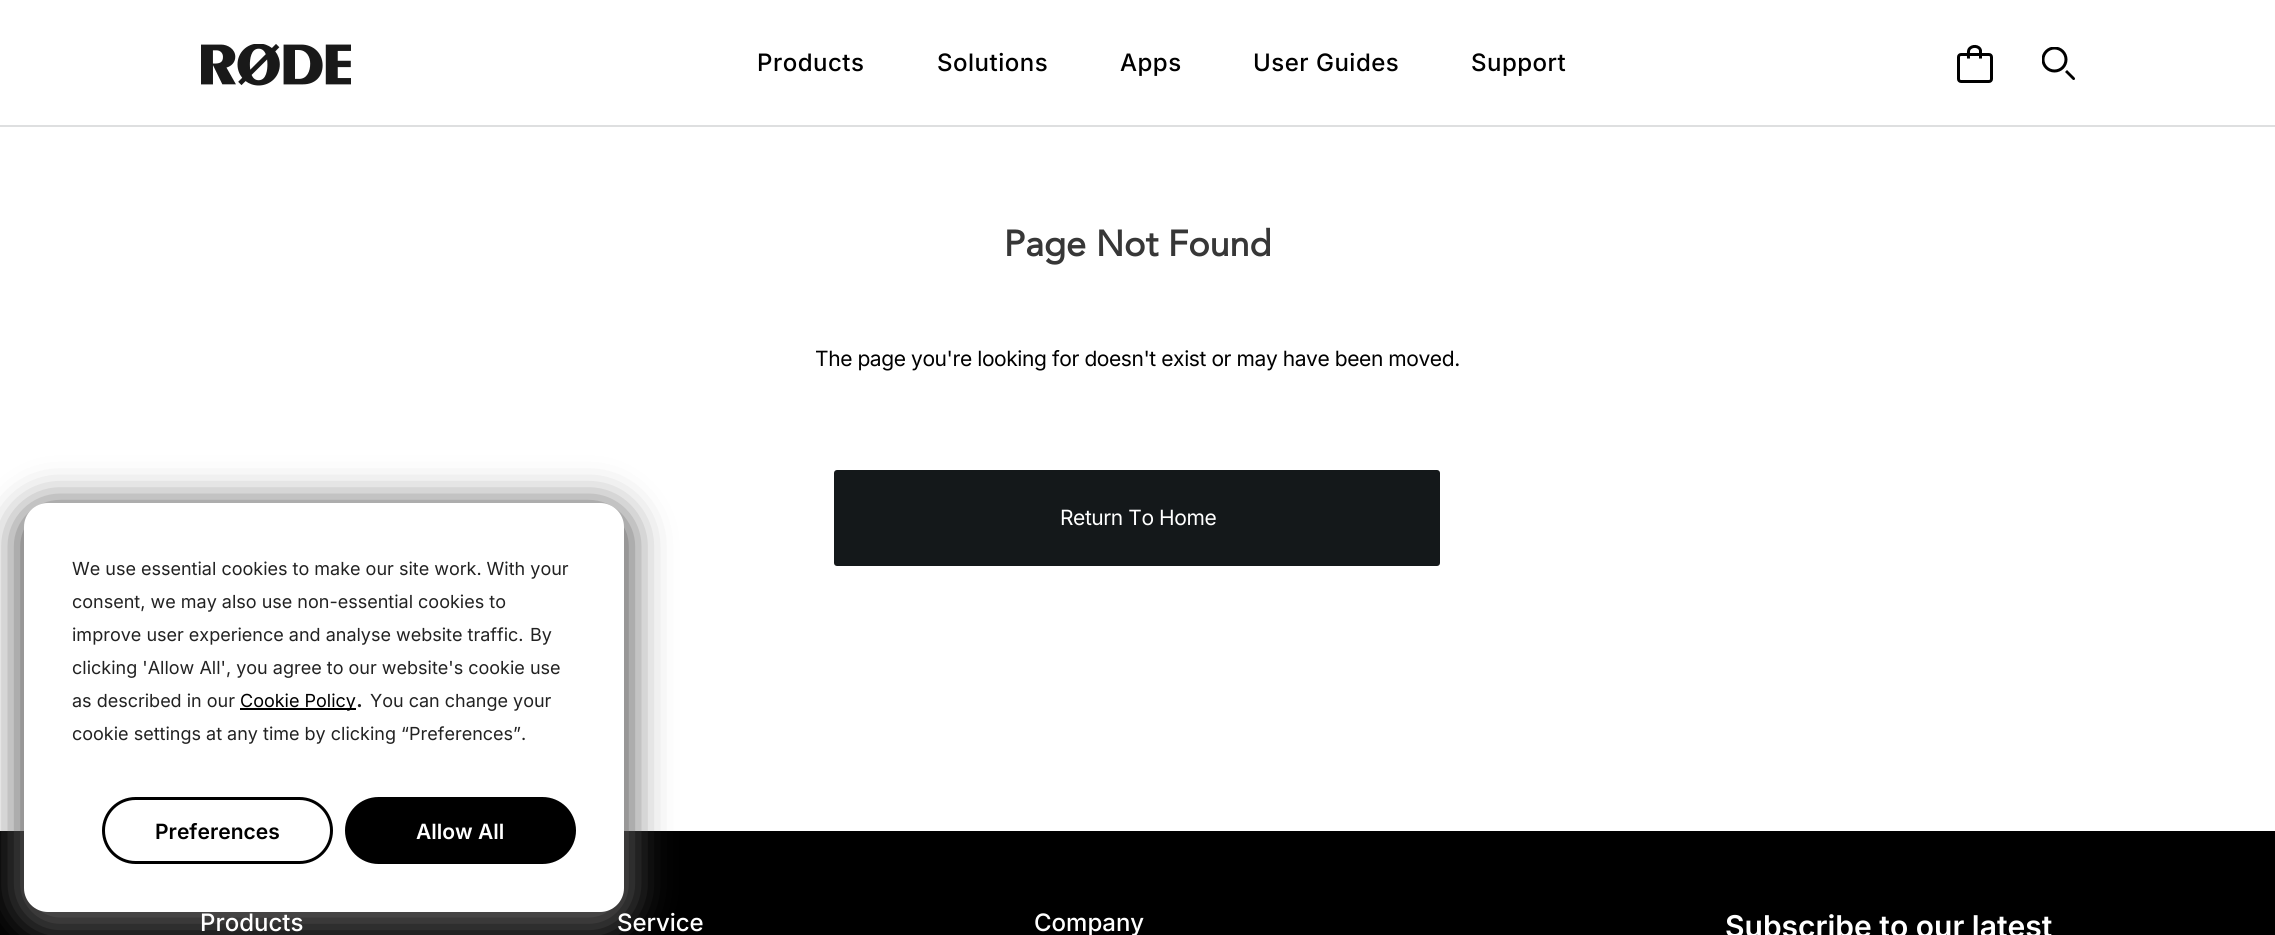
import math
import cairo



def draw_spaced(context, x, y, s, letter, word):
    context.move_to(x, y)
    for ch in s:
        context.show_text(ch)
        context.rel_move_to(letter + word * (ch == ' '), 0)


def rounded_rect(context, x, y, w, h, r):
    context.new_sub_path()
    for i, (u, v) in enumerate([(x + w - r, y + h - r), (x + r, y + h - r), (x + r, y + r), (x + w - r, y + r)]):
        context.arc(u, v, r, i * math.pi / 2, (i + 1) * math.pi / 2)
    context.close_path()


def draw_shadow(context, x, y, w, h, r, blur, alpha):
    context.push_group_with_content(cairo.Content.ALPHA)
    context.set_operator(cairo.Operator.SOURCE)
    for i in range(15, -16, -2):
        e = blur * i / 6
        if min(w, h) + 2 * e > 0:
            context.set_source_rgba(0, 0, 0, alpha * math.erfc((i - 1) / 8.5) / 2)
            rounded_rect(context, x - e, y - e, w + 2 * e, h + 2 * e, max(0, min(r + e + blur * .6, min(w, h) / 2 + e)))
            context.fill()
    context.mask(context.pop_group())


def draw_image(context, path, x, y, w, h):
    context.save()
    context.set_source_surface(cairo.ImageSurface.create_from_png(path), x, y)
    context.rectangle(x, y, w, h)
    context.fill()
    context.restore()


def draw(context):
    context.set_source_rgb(1, 1, 1)
    context.paint()
    draw_image(context, "images/1.png", 201, 44, 150, 42)
    context.new_path()
    context.move_to(1980.5, 58.5)
    context.line_to(1980.5, 50.5)
    context.curve_to(1979.5, 45.5, 1971.5, 45, 1969, 49.5)
    context.curve_to(1968, 51.5, 1968.5, 56, 1968.5, 58.5)
    context.set_source_rgb(0, 0, 0)
    context.set_line_width(3)
    context.stroke()
    rounded_rect(context, 1958.5, 54.5, 33, 27, 2.5)
    context.stroke()
    context.save()
    context.rectangle(2042, 47, 34, 34)
    context.clip()
    context.arc(2054.5, 59.5, 11.5, 0, 2 * math.pi)
    context.stroke()
    context.restore()
    context.new_path()
    context.move_to(2072.5, 79.5)
    context.curve_to(2074, 81, 2076, 79, 2074.5, 77.5)
    context.close_path()
    context.move_to(2065, 72)
    context.line_to(2072.5, 79.5)
    context.line_to(2074.5, 77.5)
    context.line_to(2067, 70)
    context.close_path()
    context.fill()
    context.set_source_rgb(222 / 255, 223 / 255, 224 / 255)
    context.rectangle(0, 125, 2275, 2)
    context.fill()
    context.set_source_rgb(0, 0, 0)
    context.rectangle(0, 831, 2275, 104)
    context.fill()
    context.set_source_rgb(92 / 255, 91 / 255, 91 / 255)
    draw_shadow(context, 17, 503, 615, 424, 32, 19, 1)
    context.set_source_rgb(1, 1, 1)
    rounded_rect(context, 24, 503, 600, 409, 24)
    context.fill()
    context.set_source_rgb(0, 0, 0)
    context.rectangle(240, 708, 116, 2)
    context.fill()
    rounded_rect(context, 103.5, 798.5, 228, 64, 32)
    context.stroke()
    rounded_rect(context, 346.5, 798.5, 228, 64, 32)
    context.fill_preserve()
    context.stroke()
    context.set_source_rgb(20 / 255, 24 / 255, 26 / 255)
    rounded_rect(context, 834, 470, 606, 96, 3)
    context.fill()
    context.select_font_face("Inter Medium")
    context.set_font_size(24)
    context.set_source_rgb(0, 0, 0)
    draw_spaced(context, 757, 71, "Products", 0.5, 0)
    draw_spaced(context, 937, 71, "Solutions", 0.5, 0)
    draw_spaced(context, 1120, 71, "Apps", 0.5, 0)
    draw_spaced(context, 1253, 71, "User Guides", 0.5, 0)
    draw_spaced(context, 1471, 71, "Support", 0.5, 0)
    context.select_font_face("Inter")
    context.set_font_size(18)
    context.set_source_rgb(34 / 255, 34 / 255, 34 / 255)
    context.move_to(72, 575)
    context.show_text("We use essential cookies to make our site work. With your")
    context.move_to(72, 608)
    context.show_text("consent, we may also use non-essential cookies to")
    context.move_to(72, 641)
    context.show_text("improve user experience and analyse website traffic.")
    context.move_to(530, 641)
    context.show_text("By")
    context.move_to(72, 674)
    context.show_text("clicking 'Allow All', you agree to our website's cookie use")
    context.move_to(72, 707)
    context.show_text("as described in our")
    context.set_source_rgb(0, 0, 0)
    context.move_to(240, 707)
    context.show_text("Cookie Policy")
    context.set_font_size(24)
    context.set_source_rgb(34 / 255, 34 / 255, 34 / 255)
    context.move_to(356, 707)
    context.show_text(".")
    context.set_font_size(18)
    context.move_to(370, 707)
    context.show_text("You can change your")
    context.move_to(72, 740)
    context.show_text("cookie settings at any time by clicking “Preferences”.")
    context.select_font_face("Inter SemiBold")
    context.set_font_size(21)
    context.set_source_rgb(0, 0, 0)
    context.move_to(155, 839)
    context.show_text("Preferences")
    context.set_source_rgb(1, 1, 1)
    context.move_to(416, 839)
    context.show_text("Allow All")
    context.select_font_face("Avenir", cairo.FontSlant.NORMAL, cairo.FontWeight.BOLD)
    context.set_font_size(36)
    context.set_source_rgb(55 / 255, 55 / 255, 55 / 255)
    context.move_to(1004, 256)
    context.show_text("Page Not Found")
    context.select_font_face("Inter")
    context.set_font_size(21)
    context.set_source_rgb(0, 0, 0)
    draw_spaced(context, 815, 366, "The page you're looking for doesn't exist or may have been moved.", -0.42, 0)
    context.set_source_rgb(1, 1, 1)
    draw_spaced(context, 1060, 525, "Return To Home", -0.42, 0)
    context.select_font_face("Inter Medium")
    context.set_font_size(24)
    context.move_to(200, 931)
    context.show_text("Products")
    context.move_to(617, 931)
    context.show_text("Service")
    context.move_to(1034, 931)
    context.show_text("Company")
    context.select_font_face("Inter SemiBold")
    context.set_font_size(30)
    context.move_to(1725, 937)
    context.show_text("Subscribe to our latest")


surface = cairo.ImageSurface(cairo.Format.RGB24, 2275, 935)
context = cairo.Context(surface)
options = cairo.FontOptions()
options.set_hint_metrics(cairo.HintMetrics.OFF)
options.set_hint_style(cairo.HintStyle.NONE)
context.set_font_options(options)
context.set_miter_limit(4)
draw(context)
surface.write_to_png("out.png")
